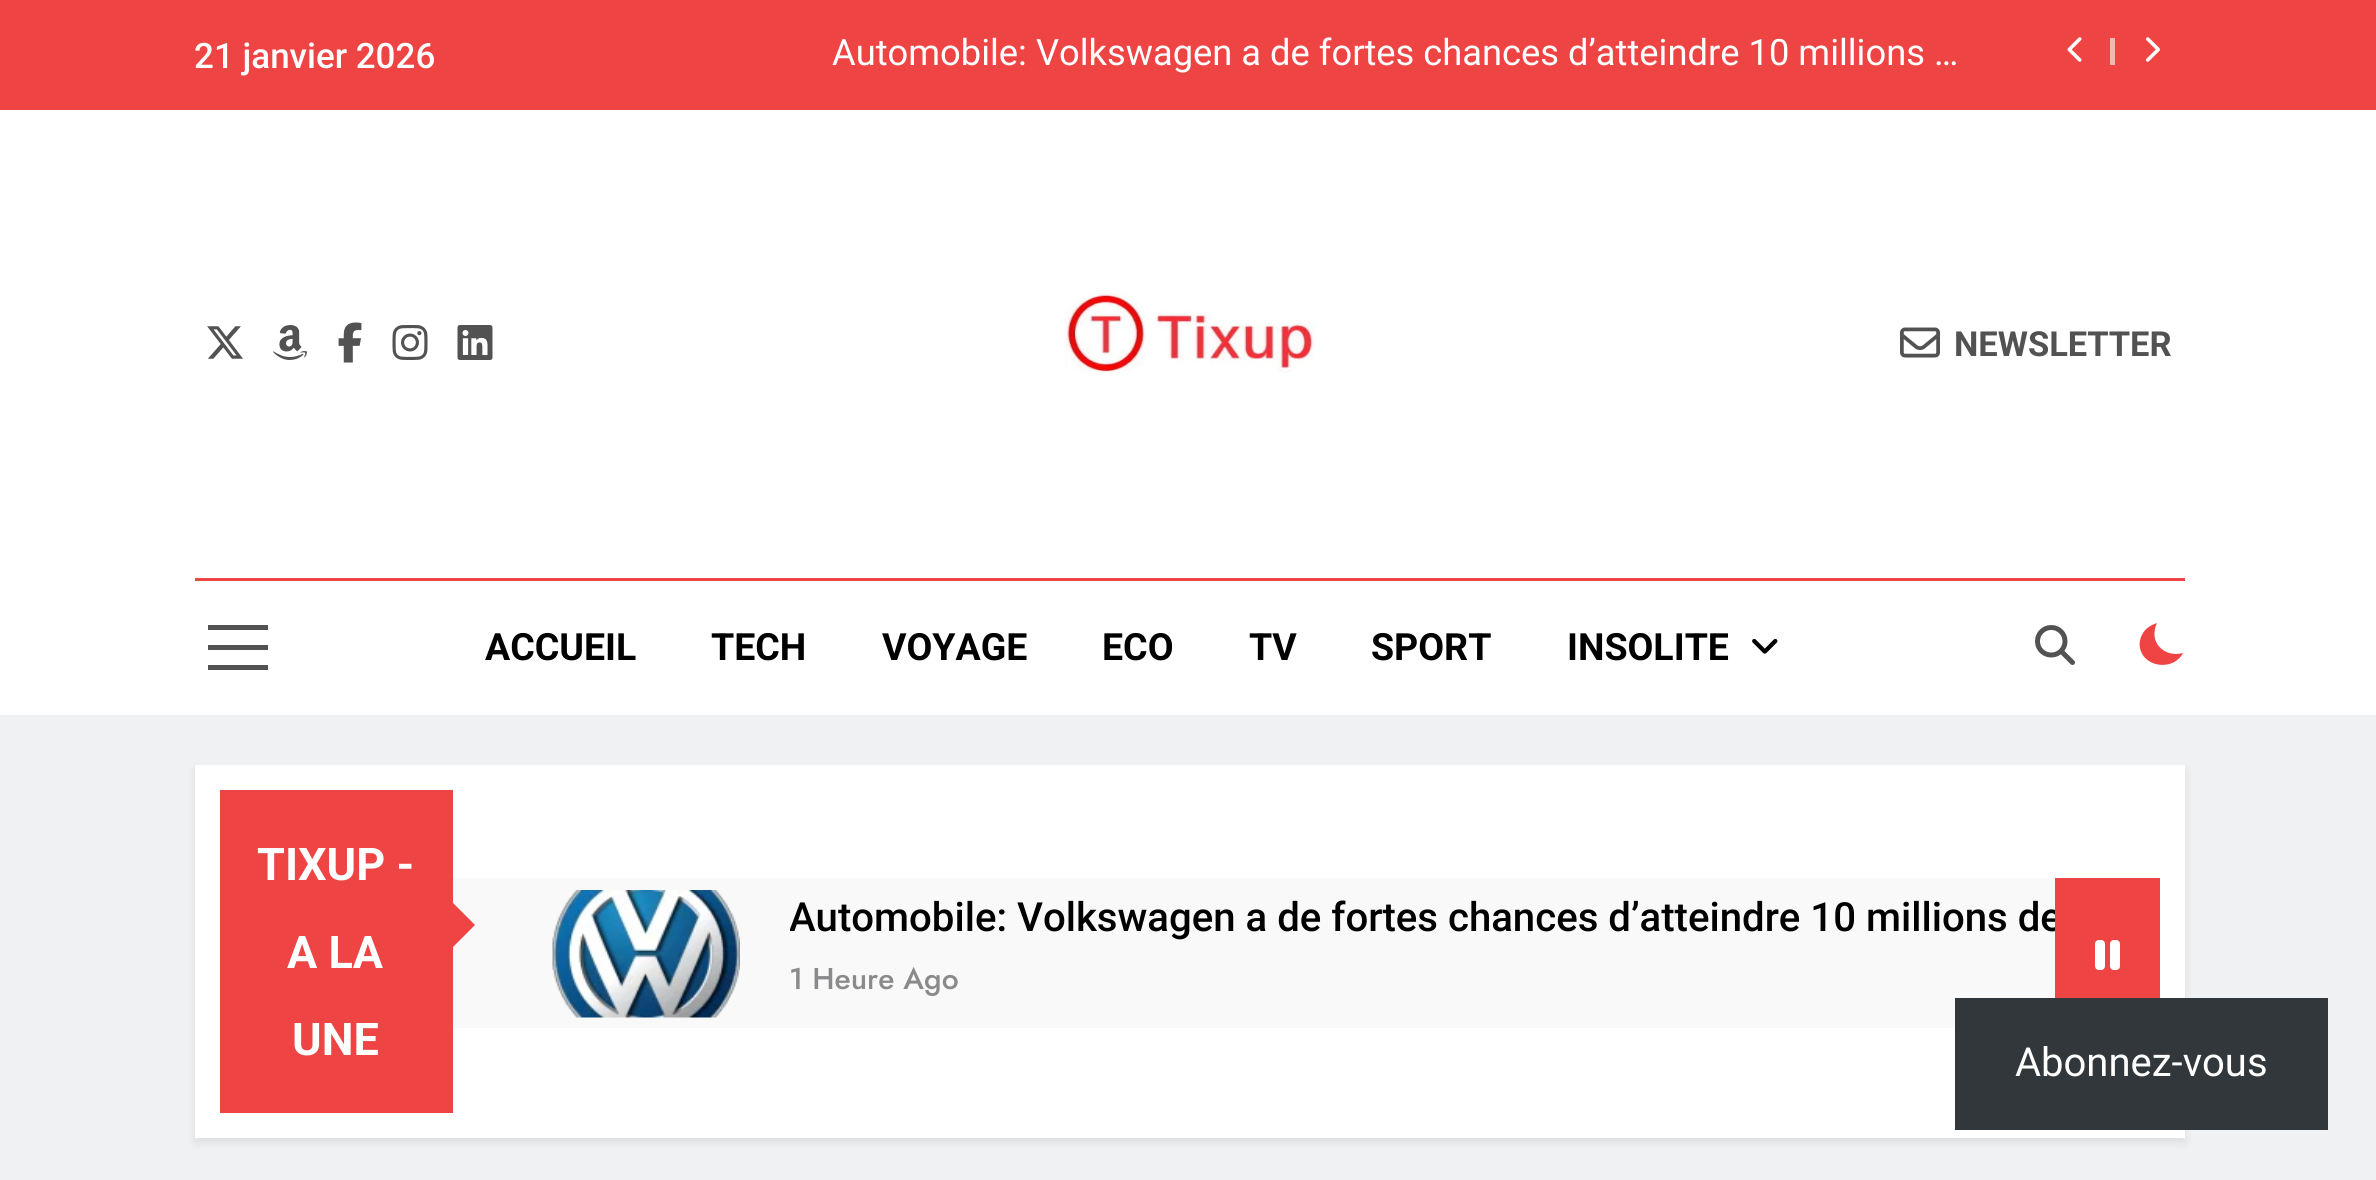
import math
import cairo



def rounded_rect(context, x, y, w, h, r):
    context.new_sub_path()
    for i, (u, v) in enumerate([(x + w - r, y + h - r), (x + r, y + h - r), (x + r, y + r), (x + w - r, y + r)]):
        context.arc(u, v, r, i * math.pi / 2, (i + 1) * math.pi / 2)
    context.close_path()


def draw_shadow(context, x, y, w, h, r, blur, alpha):
    context.push_group_with_content(cairo.Content.ALPHA)
    context.set_operator(cairo.Operator.SOURCE)
    for i in range(15, -16, -2):
        e = blur * i / 6
        if min(w, h) + 2 * e > 0:
            context.set_source_rgba(0, 0, 0, alpha * math.erfc((i - 1) / 8.5) / 2)
            rounded_rect(context, x - e, y - e, w + 2 * e, h + 2 * e, max(0, min(r + e + blur * .6, min(w, h) / 2 + e)))
            context.fill()
    context.mask(context.pop_group())


def draw_image(context, path, x, y, w, h):
    context.save()
    context.set_source_surface(cairo.ImageSurface.create_from_png(path), x, y)
    context.rectangle(x, y, w, h)
    context.fill()
    context.restore()


def draw(context):
    context.set_source_rgb(240 / 255, 241 / 255, 242 / 255)
    context.paint()
    context.set_source_rgb(239 / 255, 68 / 255, 68 / 255)
    context.rectangle(0, 0, 2376, 110)
    context.fill()
    draw_image(context, "images/1.png", 2067, 37, 15, 25)
    context.set_source_rgb(249 / 255, 180 / 255, 180 / 255)
    context.rectangle(2110, 38, 5, 27)
    context.fill()
    draw_image(context, "images/2.png", 2146, 37, 14, 25)
    context.set_source_rgb(1, 1, 1)
    context.rectangle(0, 110, 2376, 605)
    context.fill()
    draw_image(context, "images/3.png", 207, 326, 36, 33)
    draw_image(context, "images/4.png", 273, 325, 34, 35)
    draw_image(context, "images/5.png", 338, 322, 24, 41)
    draw_image(context, "images/6.png", 392, 325, 36, 35)
    draw_image(context, "images/7.png", 457, 325, 36, 35)
    draw_image(context, "images/8.png", 1065, 290, 250, 84)
    draw_image(context, "images/9.png", 1900, 327, 40, 31)
    context.set_source_rgb(239 / 255, 68 / 255, 68 / 255)
    context.rectangle(195, 578, 1990, 3)
    context.fill()
    context.set_source_rgb(82 / 255, 82 / 255, 82 / 255)
    context.rectangle(208, 625, 60, 5)
    context.fill()
    context.rectangle(208, 645, 60, 5)
    context.fill()
    context.rectangle(208, 665, 60, 5)
    context.fill()
    draw_image(context, "images/10.png", 1752, 638, 26, 16)
    draw_image(context, "images/11.png", 2035, 625, 40, 40)
    context.set_source_rgb(239 / 255, 68 / 255, 68 / 255)
    context.new_path()
    context.move_to(2183, 653)
    context.curve_to(2164, 658, 2148, 642, 2157, 623)
    context.curve_to(2151, 625, 2146, 628, 2143, 633)
    context.curve_to(2140, 638, 2139, 643, 2140, 648)
    context.curve_to(2144, 668, 2174, 671, 2183, 653)
    context.close_path()
    context.fill()
    context.set_source_rgb(0, 0, 0)
    draw_shadow(context, 195, 770, 1990, 373, 0, 5, 0.08)
    context.set_source_rgb(1, 1, 1)
    context.rectangle(195, 765, 1990, 373)
    context.fill()
    context.set_source_rgb(239 / 255, 68 / 255, 68 / 255)
    context.rectangle(220, 790, 233, 323)
    context.fill()
    context.set_source_rgb(249 / 255, 249 / 255, 249 / 255)
    context.rectangle(453, 878, 1602, 150)
    context.fill()
    context.set_source_rgb(239 / 255, 68 / 255, 68 / 255)
    context.new_path()
    context.move_to(450, 950)
    context.line_to(450, 900)
    context.line_to(475, 925)
    context.close_path()
    context.fill()
    draw_image(context, "images/12.png", 552, 890, 188, 128)
    context.rectangle(2055, 878, 105, 120)
    context.fill()
    draw_image(context, "images/13.png", 2095, 940, 25, 30)
    context.set_source_rgb(50 / 255, 55 / 255, 60 / 255)
    context.rectangle(1955, 998, 373, 132)
    context.fill()
    context.select_font_face("Roboto Medium")
    context.set_font_size(35)
    context.set_source_rgb(1, 1, 1)
    context.move_to(194, 68)
    context.show_text("21 janvier 2026")
    context.select_font_face("Roboto")
    context.set_font_size(36.3)
    context.move_to(832, 65)
    context.show_text("Automobile: Volkswagen a de fortes chances d’atteindre 10 millions …")
    context.select_font_face("Roboto", cairo.FontSlant.NORMAL, cairo.FontWeight.BOLD)
    context.set_font_size(34.5)
    context.set_source_rgb(82 / 255, 82 / 255, 82 / 255)
    context.move_to(1954, 356)
    context.show_text("NEWSLETTER")
    context.set_font_size(37.5)
    context.set_source_rgb(0, 0, 0)
    context.move_to(485, 660)
    context.show_text("ACCUEIL")
    context.move_to(711, 660)
    context.show_text("TECH")
    context.move_to(882, 660)
    context.show_text("VOYAGE")
    context.move_to(1102, 660)
    context.show_text("ECO")
    context.move_to(1249, 660)
    context.show_text("TV")
    context.move_to(1371, 660)
    context.show_text("SPORT")
    context.move_to(1567, 660)
    context.show_text("INSOLITE")
    context.set_font_size(45)
    context.set_source_rgb(1, 1, 1)
    context.move_to(257, 880)
    context.show_text("TIXUP -")
    context.move_to(287, 968)
    context.show_text("A LA")
    context.move_to(292, 1055)
    context.show_text("UNE")
    context.save()
    context.rectangle(790, 895, 1265, 48)
    context.clip()
    context.select_font_face("Roboto Medium")
    context.set_font_size(40.15)
    context.set_source_rgb(0, 0, 0)
    context.move_to(789, 931)
    context.show_text("Automobile: Volkswagen a de fortes chances d’atteindre 10 millions de")
    context.restore()
    context.select_font_face("Jost Medium")
    context.set_font_size(30)
    context.set_source_rgb(138 / 255, 138 / 255, 140 / 255)
    context.move_to(789, 989)
    context.show_text("1 Heure Ago")
    context.select_font_face("Roboto")
    context.set_font_size(40)
    context.set_source_rgb(1, 1, 1)
    context.move_to(2015, 1076)
    context.show_text("Abonnez-vous")


surface = cairo.ImageSurface(cairo.Format.RGB24, 2376, 1180)
context = cairo.Context(surface)
options = cairo.FontOptions()
options.set_hint_metrics(cairo.HintMetrics.OFF)
options.set_hint_style(cairo.HintStyle.NONE)
context.set_font_options(options)
context.set_miter_limit(4)
draw(context)
surface.write_to_png("out.png")
